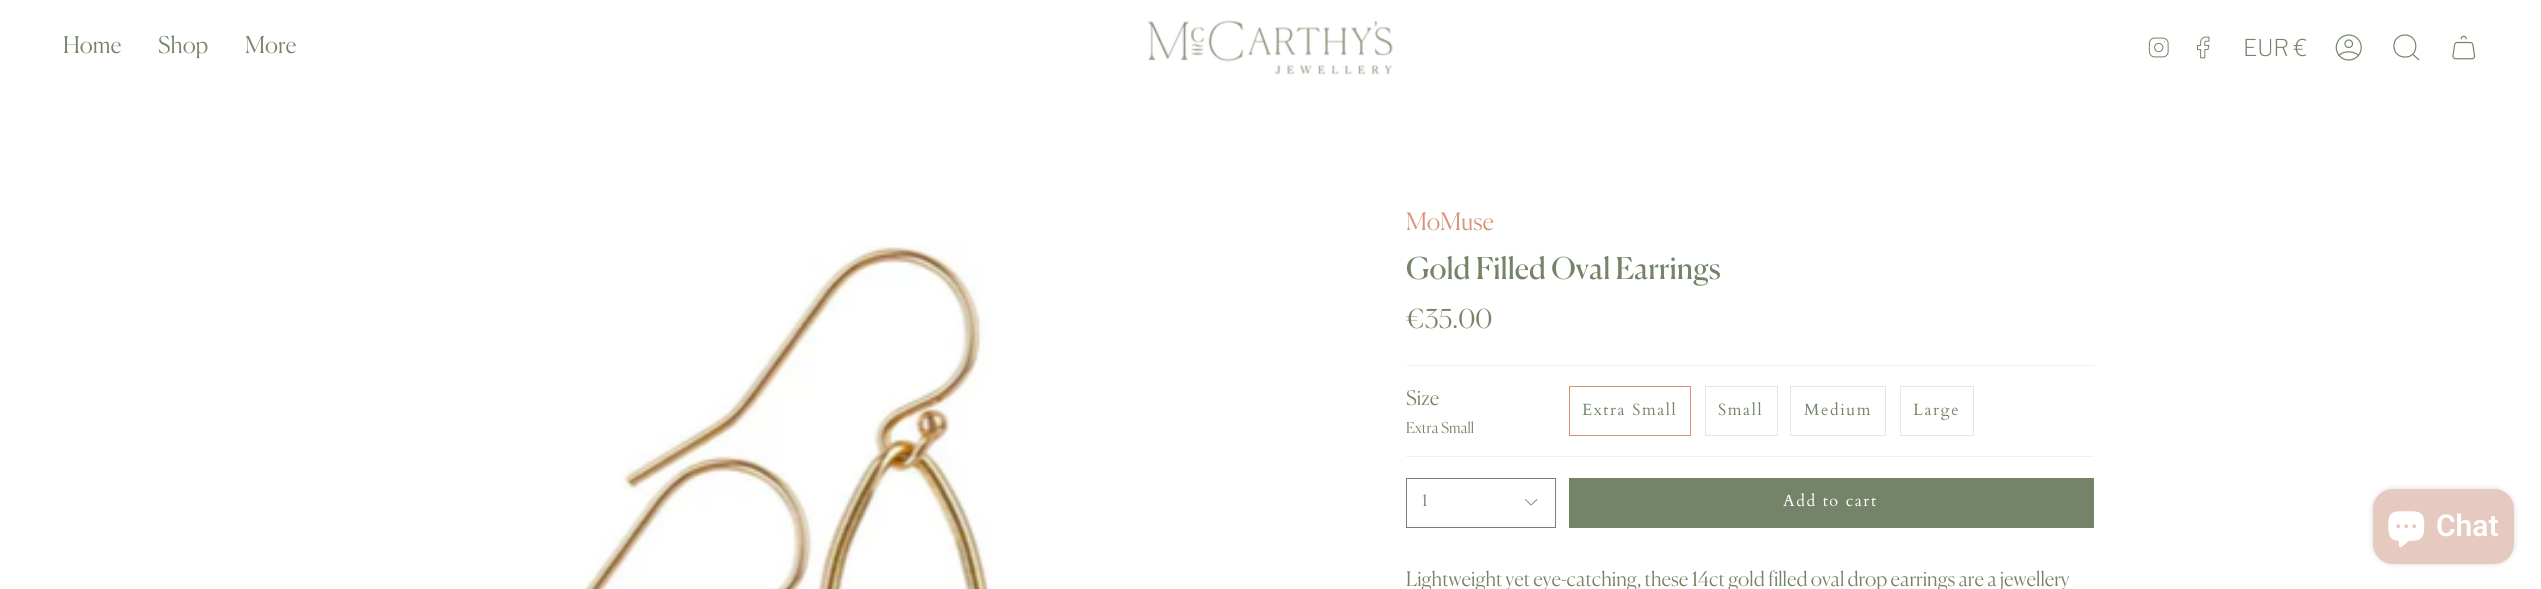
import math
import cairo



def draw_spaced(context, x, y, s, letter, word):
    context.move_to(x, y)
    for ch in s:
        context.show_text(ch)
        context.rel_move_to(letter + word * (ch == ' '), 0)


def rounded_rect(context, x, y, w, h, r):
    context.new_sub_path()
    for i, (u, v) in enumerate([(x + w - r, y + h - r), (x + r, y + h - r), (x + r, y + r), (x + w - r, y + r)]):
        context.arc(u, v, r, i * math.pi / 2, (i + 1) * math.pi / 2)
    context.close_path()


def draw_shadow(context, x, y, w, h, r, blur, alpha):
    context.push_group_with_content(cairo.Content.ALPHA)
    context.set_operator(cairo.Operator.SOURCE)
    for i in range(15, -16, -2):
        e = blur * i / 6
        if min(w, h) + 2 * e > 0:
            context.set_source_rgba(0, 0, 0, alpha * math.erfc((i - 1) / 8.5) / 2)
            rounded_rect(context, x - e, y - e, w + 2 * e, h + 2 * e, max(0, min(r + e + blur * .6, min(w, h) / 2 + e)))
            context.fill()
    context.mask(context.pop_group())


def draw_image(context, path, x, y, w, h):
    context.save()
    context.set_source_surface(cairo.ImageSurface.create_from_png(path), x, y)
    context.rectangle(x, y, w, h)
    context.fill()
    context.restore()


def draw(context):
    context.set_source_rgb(1, 1, 1)
    context.paint()
    draw_image(context, "images/1.png", 1147, 20, 246, 55)
    draw_image(context, "images/2.png", 2148, 37, 21, 21)
    draw_image(context, "images/3.png", 2197, 36, 13, 23)
    draw_image(context, "images/4.png", 2335, 34, 27, 27)
    context.new_path()
    context.move_to(2405, 35)
    context.curve_to(2419.5, 35, 2419.5, 58, 2404.5, 57)
    context.curve_to(2390, 56.5, 2390.5, 35, 2405, 35)
    context.close_path()
    context.move_to(2412.5, 54)
    context.line_to(2419, 60)
    context.set_source_rgb(117 / 255, 132 / 255, 104 / 255)
    context.set_line_width(1.2)
    context.stroke()
    draw_image(context, "images/5.png", 2452, 35, 24, 25)
    draw_image(context, "images/6.png", 582, 244, 410, 345)
    context.set_source_rgb(240 / 255, 240 / 255, 240 / 255)
    context.rectangle(1406, 365, 688, 1)
    context.fill()
    context.rectangle(1406, 456, 688, 1)
    context.fill()
    context.rectangle(1569.5, 386.5, 121, 49)
    context.set_source_rgb(215 / 255, 146 / 255, 117 / 255)
    context.set_line_width(1)
    context.stroke()
    context.rectangle(1705.5, 386.5, 72, 49)
    context.set_source_rgb(227 / 255, 230 / 255, 225 / 255)
    context.stroke()
    context.rectangle(1790.5, 386.5, 95, 49)
    context.stroke()
    context.rectangle(1900.5, 386.5, 73, 49)
    context.stroke()
    context.rectangle(1406.5, 478.5, 149, 49)
    context.set_source_rgb(117 / 255, 132 / 255, 104 / 255)
    context.stroke()
    context.new_path()
    context.move_to(1525.5, 499.5)
    context.line_to(1531, 505)
    context.line_to(1537, 499.5)
    context.set_line_width(0.9)
    context.set_line_cap(cairo.LineCap.ROUND)
    context.set_line_join(cairo.LineJoin.ROUND)
    context.stroke()
    context.rectangle(1569, 478, 525, 50)
    context.fill()
    context.set_source_rgb(0, 0, 0)
    draw_shadow(context, 2373, 489, 141, 75, 20, 3, 0.15)
    context.set_source_rgb(230 / 255, 201 / 255, 191 / 255)
    rounded_rect(context, 2373, 489, 141, 75, 20)
    context.fill()
    draw_image(context, "images/7.png", 2388, 511, 37, 37)
    context.select_font_face("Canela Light")
    context.set_font_size(23)
    context.set_source_rgb(117 / 255, 132 / 255, 104 / 255)
    context.move_to(63, 53)
    context.show_text("Home")
    context.move_to(158, 53)
    context.show_text("Shop")
    context.move_to(245, 53)
    context.show_text("More")
    context.select_font_face("Libre Franklin ExtraLight")
    context.move_to(2243, 56)
    context.show_text("EUR €")
    context.select_font_face("Canela Light")
    context.set_font_size(24)
    context.set_source_rgb(215 / 255, 146 / 255, 117 / 255)
    context.move_to(1406, 230)
    context.show_text("MoMuse")
    context.select_font_face("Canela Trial")
    context.set_font_size(30)
    context.set_source_rgb(117 / 255, 132 / 255, 104 / 255)
    context.move_to(1406, 279)
    context.show_text("Gold Filled Oval Earrings")
    context.select_font_face("Canela Light")
    context.set_font_size(26)
    context.move_to(1406, 328)
    context.show_text("€35.00")
    context.set_font_size(20)
    context.move_to(1406, 405)
    context.show_text("Size")
    context.set_font_size(15)
    context.move_to(1406, 433)
    context.show_text("Extra Small")
    context.select_font_face("Cardo")
    context.set_font_size(16.25)
    draw_spaced(context, 1582, 415, "Extra Small", 1.6, 0)
    draw_spaced(context, 1718, 415, "Small", 1.6, 0)
    draw_spaced(context, 1804, 415, "Medium", 1.6, 0)
    draw_spaced(context, 1913, 415, "Large", 1.6, 0)
    context.select_font_face("Canela Light")
    context.move_to(1422, 506)
    context.show_text("1")
    context.select_font_face("Cardo")
    context.set_source_rgb(1, 1, 1)
    draw_spaced(context, 1783, 506, "Add to cart", 1.6, 0)
    context.new_path()
    context.arc(1831, 502.5, 9, 0, 2 * math.pi)
    context.set_source_rgb(117 / 255, 132 / 255, 104 / 255)
    context.set_line_width(1.2)
    context.set_line_cap(cairo.LineCap.BUTT)
    context.set_line_join(cairo.LineJoin.MITER)
    context.stroke()
    context.select_font_face("Canela Light")
    context.set_font_size(20)
    context.move_to(1406, 586)
    context.show_text("Lightweight yet eye-catching, these 14ct gold filled oval drop earrings are a jewellery")
    context.select_font_face("Roboto SemiBold")
    context.set_font_size(30)
    context.set_source_rgb(1, 1, 1)
    context.move_to(2436, 536)
    context.show_text("Chat")


surface = cairo.ImageSurface(cairo.Format.RGB24, 2541, 589)
context = cairo.Context(surface)
options = cairo.FontOptions()
options.set_hint_metrics(cairo.HintMetrics.OFF)
options.set_hint_style(cairo.HintStyle.NONE)
context.set_font_options(options)
context.set_miter_limit(4)
draw(context)
surface.write_to_png("out.png")
